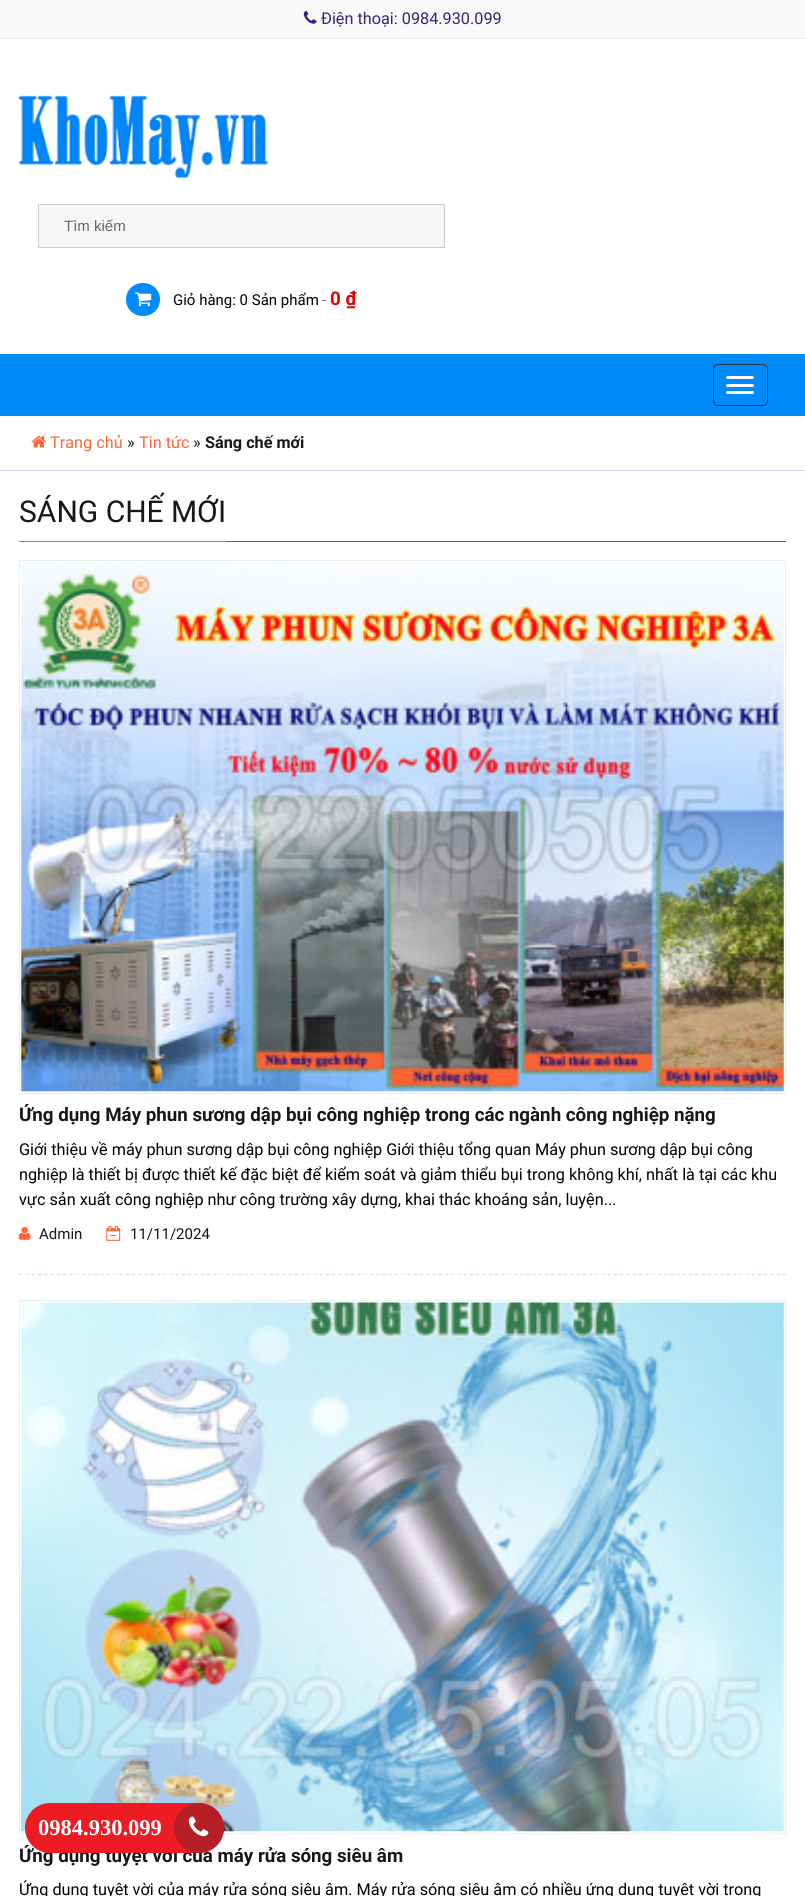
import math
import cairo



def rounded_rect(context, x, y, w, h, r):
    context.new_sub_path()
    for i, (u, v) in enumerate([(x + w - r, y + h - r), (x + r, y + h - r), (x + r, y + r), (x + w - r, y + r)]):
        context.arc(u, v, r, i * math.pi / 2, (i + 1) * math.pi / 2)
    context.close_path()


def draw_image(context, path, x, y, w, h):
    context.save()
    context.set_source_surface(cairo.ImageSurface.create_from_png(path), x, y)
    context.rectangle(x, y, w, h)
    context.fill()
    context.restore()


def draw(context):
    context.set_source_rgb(1, 1, 1)
    context.paint()
    context.set_source_rgb(249 / 255, 249 / 255, 249 / 255)
    context.rectangle(0, 0, 805, 38)
    context.fill()
    context.set_source_rgb(237 / 255, 237 / 255, 237 / 255)
    context.rectangle(0, 38, 805, 1)
    context.fill()
    draw_image(context, "images/1.png", 303, 11, 14, 13)
    draw_image(context, "images/2.png", 18, 95, 251, 83)
    context.set_source_rgb(247 / 255, 247 / 255, 247 / 255)
    context.rectangle(38.5, 204.5, 406, 43)
    context.fill_preserve()
    context.set_source_rgb(204 / 255, 204 / 255, 204 / 255)
    context.set_line_width(1)
    context.stroke()
    context.set_source_rgb(0, 138 / 255, 250 / 255)
    rounded_rect(context, 126, 283, 34, 33, 16.5)
    context.fill()
    draw_image(context, "images/3.png", 135, 292, 17, 15)
    context.rectangle(0, 354, 805, 62)
    context.fill()
    rounded_rect(context, 713.5, 364.5, 54, 41, 4.5)
    context.set_source_rgb(51 / 255, 51 / 255, 51 / 255)
    context.stroke()
    context.set_source_rgb(1, 1, 1)
    rounded_rect(context, 726, 376, 28, 3, 1.5)
    context.fill()
    rounded_rect(context, 726, 384, 28, 3, 1.5)
    context.fill()
    rounded_rect(context, 726, 391, 28, 3, 1.5)
    context.fill()
    context.set_source_rgb(210 / 255, 210 / 255, 251 / 255)
    context.rectangle(0, 470, 805, 1)
    context.fill()
    draw_image(context, "images/4.png", 31, 435, 16, 13)
    context.set_source_rgb(81 / 255, 80 / 255, 183 / 255)
    context.rectangle(226, 541, 560, 1)
    context.fill()
    context.set_source_rgb(1, 100 / 255, 52 / 255)
    context.rectangle(19, 541, 207, 1)
    context.fill()
    context.new_path()
    context.move_to(19, 1274.5)
    context.line_to(786, 1274.5)
    context.set_source_rgb(223 / 255, 222 / 255, 253 / 255)
    context.set_line_width(1.2)
    context.set_dash([3.75, 2.51])
    context.stroke()
    context.rectangle(19.5, 560.5, 766, 533)
    context.set_source_rgb(237 / 255, 237 / 255, 237 / 255)
    context.set_line_width(1)
    context.set_dash([])
    context.stroke()
    draw_image(context, "images/5.png", 21, 562, 763, 530)
    draw_image(context, "images/6.png", 18, 1227, 13, 13)
    draw_image(context, "images/7.png", 106, 1225, 15, 16)
    context.rectangle(19.5, 1300.5, 766, 533)
    context.stroke()
    draw_image(context, "images/8.png", 21, 1302, 763, 530)
    context.select_font_face("Roboto")
    context.set_font_size(16.25)
    context.set_source_rgb(43 / 255, 42 / 255, 121 / 255)
    context.move_to(321, 24)
    context.show_text("Điện thoại: 0984.930.099")
    context.select_font_face("Liberation Sans")
    context.set_font_size(15)
    context.set_source_rgb(102 / 255, 102 / 255, 102 / 255)
    context.move_to(64, 231)
    context.show_text("Tìm kiếm")
    context.select_font_face("Roboto")
    context.set_source_rgb(0, 0, 0)
    context.move_to(173, 305)
    context.show_text("Giỏ hàng: 0 Sản phẩm")
    context.set_source_rgb(102 / 255, 102 / 255, 102 / 255)
    context.move_to(322, 305)
    context.show_text("-")
    context.select_font_face("Roboto", cairo.FontSlant.NORMAL, cairo.FontWeight.BOLD)
    context.set_font_size(18.75)
    context.set_source_rgb(223 / 255, 3 / 255, 3 / 255)
    context.move_to(330, 305)
    context.show_text("0 ₫")
    context.select_font_face("Roboto")
    context.set_font_size(16.25)
    context.set_source_rgb(1, 100 / 255, 52 / 255)
    context.move_to(50, 448)
    context.show_text("Trang chủ")
    context.set_source_rgb(24 / 255, 22 / 255, 23 / 255)
    context.move_to(127, 448)
    context.show_text("»")
    context.set_source_rgb(1, 100 / 255, 52 / 255)
    context.move_to(139, 448)
    context.show_text("Tin tức")
    context.set_source_rgb(24 / 255, 22 / 255, 23 / 255)
    context.move_to(193, 448)
    context.show_text("»")
    context.select_font_face("Roboto", cairo.FontSlant.NORMAL, cairo.FontWeight.BOLD)
    context.move_to(205, 448)
    context.show_text("Sáng chế mới")
    context.select_font_face("Roboto")
    context.set_font_size(30)
    context.move_to(19, 522)
    context.show_text("SÁNG CHẾ MỚI")
    context.select_font_face("Roboto", cairo.FontSlant.NORMAL, cairo.FontWeight.BOLD)
    context.set_font_size(18.75)
    context.move_to(19, 1121)
    context.show_text("Ứng dụng Máy phun sương dập bụi công nghiệp trong các ngành công nghiệp nặng")
    context.select_font_face("Roboto")
    context.set_font_size(16.25)
    context.set_source_rgb(0, 0, 0)
    context.move_to(19, 1155)
    context.show_text("Giới thiệu về máy phun sương dập bụi công nghiệp Giới thiệu tổng quan Máy phun sương dập bụi công")
    context.move_to(19, 1180)
    context.show_text("nghiệp là thiết bị được thiết kế đặc biệt để kiểm soát và giảm thiểu bụi trong không khí, nhất là tại các khu")
    context.move_to(19, 1205)
    context.show_text("vực sản xuất công nghiệp như công trường xây dựng, khai thác khoáng sản, luyện...")
    context.set_font_size(15)
    context.set_source_rgb(24 / 255, 22 / 255, 23 / 255)
    context.move_to(39, 1239)
    context.show_text("Admin")
    context.move_to(130, 1239)
    context.show_text("11/11/2024")
    context.select_font_face("Roboto", cairo.FontSlant.NORMAL, cairo.FontWeight.BOLD)
    context.set_font_size(18.75)
    context.move_to(19, 1862)
    context.show_text("Ứng dụng tuyệt vời của máy rửa sóng siêu âm")
    context.select_font_face("Roboto")
    context.set_font_size(16.25)
    context.set_source_rgb(0, 0, 0)
    context.move_to(19, 1895)
    context.show_text("Ứng dụng tuyệt vời của máy rửa sóng siêu âm. Máy rửa sóng siêu âm có nhiều ứng dụng tuyệt vời trong")
    context.set_source_rgb(237 / 255, 28 / 255, 36 / 255)
    rounded_rect(context, 25, 1803, 199, 50, 25)
    context.fill()
    context.select_font_face("Liberation Serif", cairo.FontSlant.NORMAL, cairo.FontWeight.BOLD)
    context.set_font_size(22.5)
    context.set_source_rgb(1, 1, 1)
    context.move_to(38, 1835)
    context.show_text("0984.930.099")
    context.set_source_rgb(181 / 255, 32 / 255, 38 / 255)
    context.new_path()
    context.arc(199, 1828, 25, 0, 2 * math.pi)
    context.fill()
    draw_image(context, "images/9.png", 188, 1816, 21, 21)


surface = cairo.ImageSurface(cairo.Format.RGB24, 805, 1896)
context = cairo.Context(surface)
options = cairo.FontOptions()
options.set_hint_metrics(cairo.HintMetrics.OFF)
options.set_hint_style(cairo.HintStyle.NONE)
context.set_font_options(options)
context.set_miter_limit(4)
draw(context)
surface.write_to_png("out.png")
